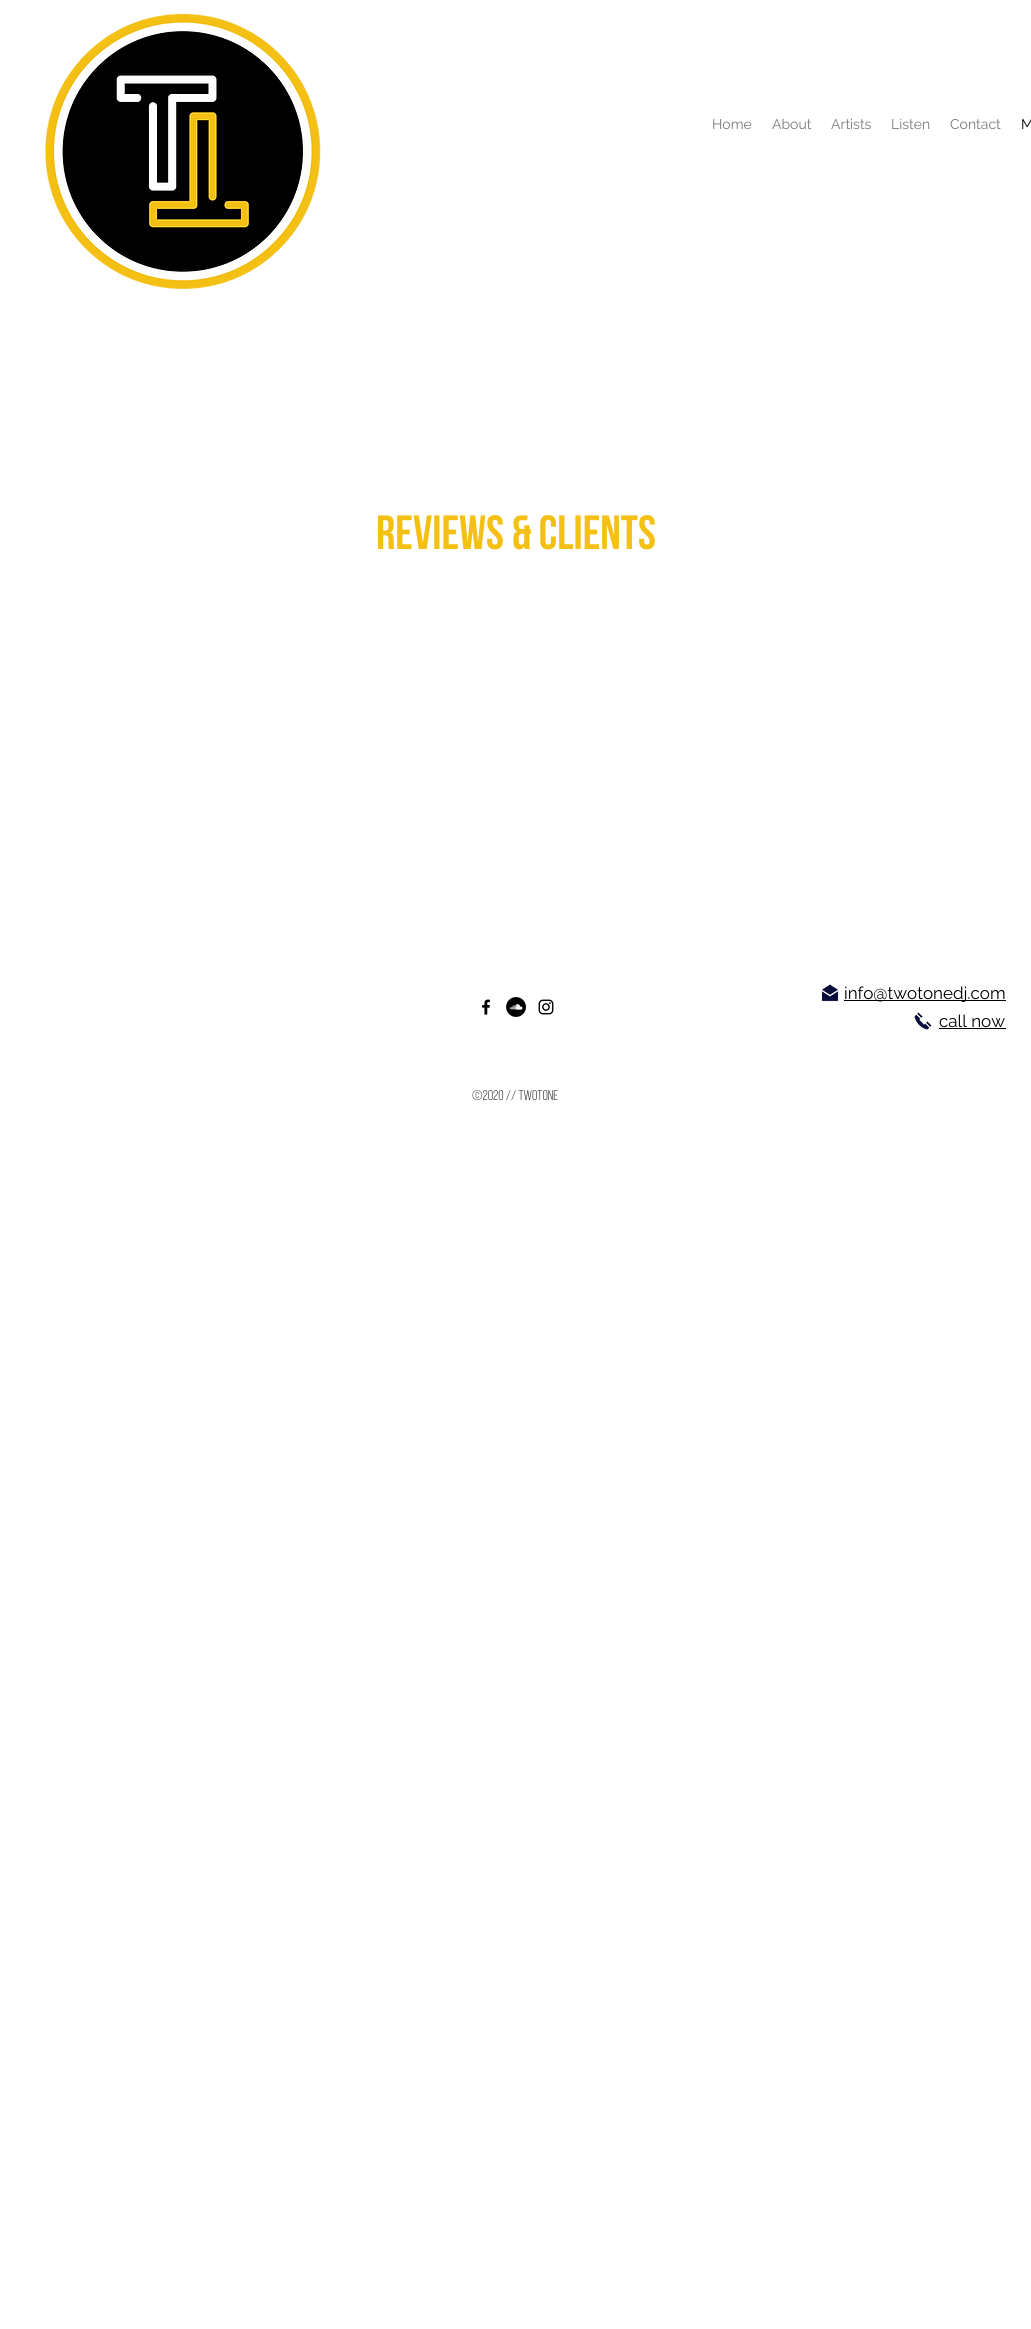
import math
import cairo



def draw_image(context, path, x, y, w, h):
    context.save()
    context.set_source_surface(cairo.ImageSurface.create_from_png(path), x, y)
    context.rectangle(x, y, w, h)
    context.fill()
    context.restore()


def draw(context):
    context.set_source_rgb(1, 1, 1)
    context.paint()
    draw_image(context, "images/1.png", 45, 13, 276, 277)
    draw_image(context, "images/2.png", 821, 984, 18, 18)
    context.set_source_rgb(0, 0, 0)
    context.rectangle(844, 1000, 162, 1)
    context.fill()
    draw_image(context, "images/3.png", 482, 999, 9, 16)
    draw_image(context, "images/4.png", 506, 997, 20, 20)
    draw_image(context, "images/5.png", 538, 999, 16, 16)
    draw_image(context, "images/6.png", 914, 1012, 18, 18)
    context.rectangle(939, 1028, 67, 1)
    context.fill()
    context.select_font_face("Raleway")
    context.set_font_size(14)
    context.set_source_rgb(122 / 255, 122 / 255, 122 / 255)
    context.move_to(712, 129)
    context.show_text("Home")
    context.move_to(772, 129)
    context.show_text("About")
    context.move_to(831, 129)
    context.show_text("Artists")
    context.move_to(891, 129)
    context.show_text("Listen")
    context.move_to(950, 129)
    context.show_text("Contact")
    context.set_source_rgb(0, 0, 0)
    context.move_to(1021, 129)
    context.show_text("M")
    context.select_font_face("Bebas Neue", cairo.FontSlant.NORMAL, cairo.FontWeight.BOLD)
    context.set_font_size(48)
    context.set_source_rgb(245 / 255, 192 / 255, 20 / 255)
    context.move_to(376, 549)
    context.show_text("Reviews & Clients")
    context.select_font_face("Raleway")
    context.set_font_size(17)
    context.set_source_rgb(0, 0, 0)
    context.move_to(844, 999)
    context.show_text("info@twotonedj.com")
    context.move_to(939, 1027)
    context.show_text("call now")
    context.select_font_face("Bebas Neue")
    context.set_font_size(14)
    context.set_source_rgb(44 / 255, 44 / 255, 44 / 255)
    context.move_to(472, 1100)
    context.show_text("©2020 // Twotone")


surface = cairo.ImageSurface(cairo.Format.RGB24, 1031, 2329)
context = cairo.Context(surface)
options = cairo.FontOptions()
options.set_hint_metrics(cairo.HintMetrics.OFF)
options.set_hint_style(cairo.HintStyle.NONE)
context.set_font_options(options)
context.set_miter_limit(4)
draw(context)
surface.write_to_png("out.png")
